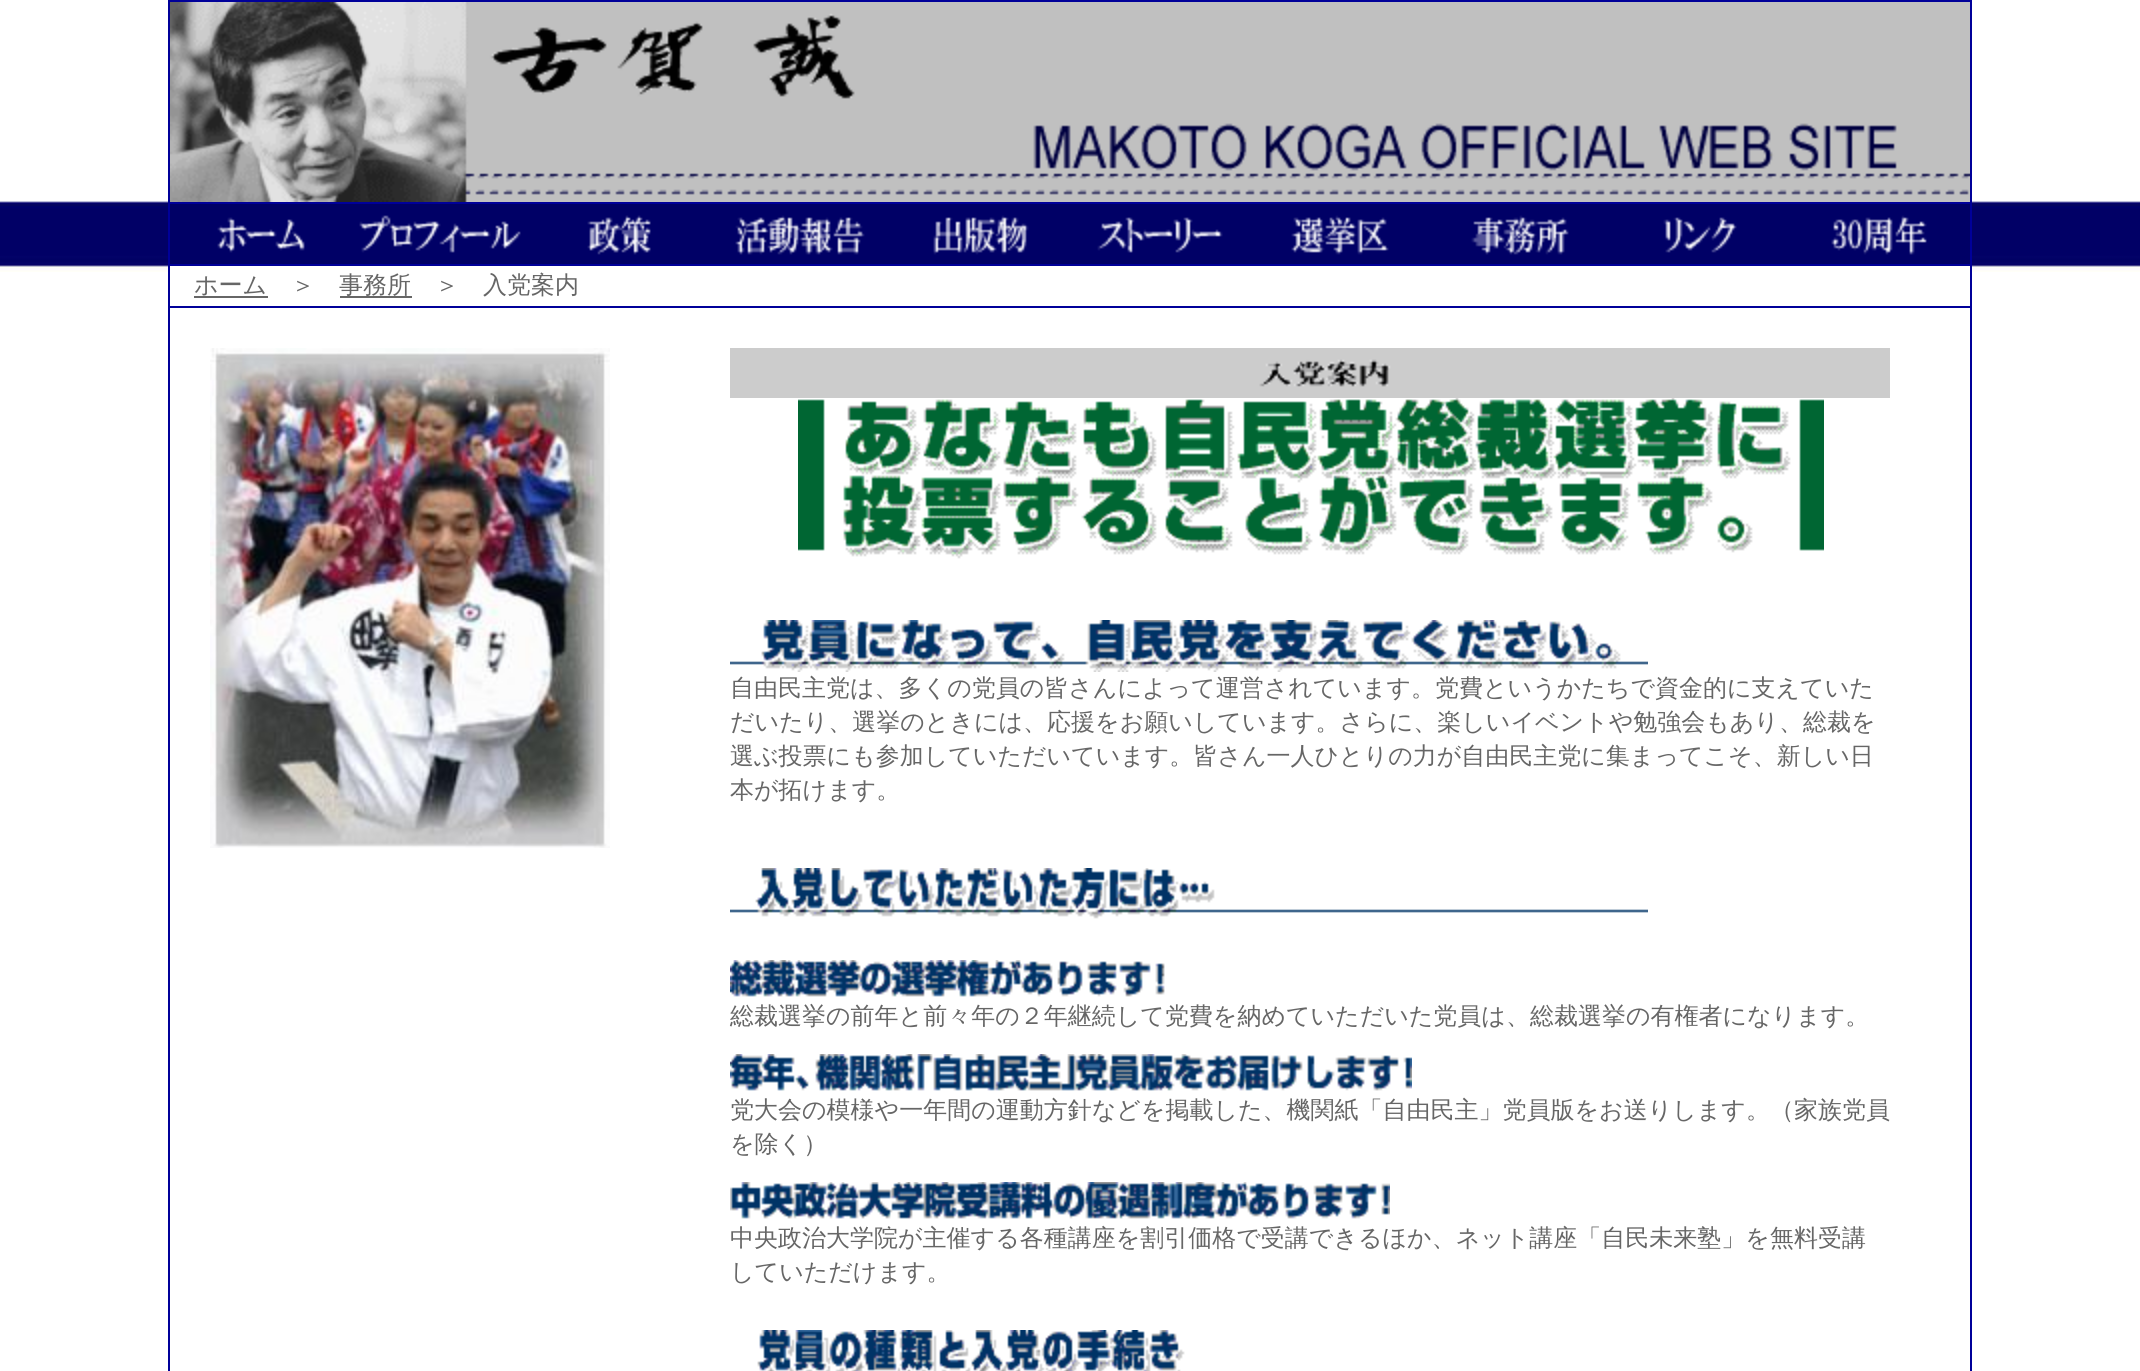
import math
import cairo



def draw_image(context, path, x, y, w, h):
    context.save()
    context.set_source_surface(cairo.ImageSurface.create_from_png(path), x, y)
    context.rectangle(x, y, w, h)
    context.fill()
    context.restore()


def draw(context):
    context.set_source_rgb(1, 1, 1)
    context.paint()
    draw_image(context, "images/1.png", 0, 201, 2140, 71)
    context.set_source_rgb(0, 0, 153 / 255)
    context.rectangle(168, 0, 1804, 1371)
    context.fill()
    draw_image(context, "images/2.png", 170, 2, 1800, 200)
    draw_image(context, "images/3.png", 170, 204, 180, 60)
    draw_image(context, "images/4.png", 350, 204, 180, 60)
    draw_image(context, "images/5.png", 530, 204, 180, 60)
    draw_image(context, "images/6.png", 710, 204, 180, 60)
    draw_image(context, "images/7.png", 890, 204, 180, 60)
    draw_image(context, "images/8.png", 1070, 204, 180, 60)
    draw_image(context, "images/9.png", 1250, 204, 180, 60)
    draw_image(context, "images/10.png", 1430, 204, 180, 60)
    draw_image(context, "images/11.png", 1610, 204, 180, 60)
    draw_image(context, "images/12.png", 1790, 204, 180, 60)
    context.set_source_rgb(1, 1, 1)
    context.rectangle(170, 266, 1800, 40)
    context.fill()
    context.set_source_rgb(102 / 255, 102 / 255, 102 / 255)
    context.rectangle(194, 296, 74, 2)
    context.fill()
    context.rectangle(340, 296, 72, 2)
    context.fill()
    context.set_source_rgb(1, 1, 1)
    context.rectangle(170, 308, 1800, 1063)
    context.fill()
    draw_image(context, "images/13.png", 210, 348, 400, 500)
    context.set_source_rgb(204 / 255, 204 / 255, 204 / 255)
    context.rectangle(730, 348, 1160, 50)
    context.fill()
    draw_image(context, "images/14.png", 1259, 359, 132, 28)
    draw_image(context, "images/15.png", 798, 398, 1026, 161)
    draw_image(context, "images/16.png", 730, 620, 918, 52)
    draw_image(context, "images/17.png", 730, 868, 918, 51)
    draw_image(context, "images/18.png", 730, 960, 435, 37)
    draw_image(context, "images/19.png", 730, 1054, 682, 37)
    draw_image(context, "images/20.png", 730, 1182, 660, 37)
    draw_image(context, "images/21.png", 757, 1330, 428, 41)
    context.select_font_face("WenQuanYi Zen Hei Medium")
    context.set_font_size(24)
    context.set_source_rgb(102 / 255, 102 / 255, 102 / 255)
    context.move_to(194, 293)
    context.show_text("ホーム")
    context.move_to(291, 293)
    context.show_text("＞")
    context.move_to(339, 293)
    context.show_text("事務所")
    context.move_to(435, 293)
    context.show_text("＞　入党案内")
    context.move_to(730, 696)
    context.show_text("自由民主党は、多くの党員の皆さんによって運営されています。党費というかたちで資金的に支えていた")
    context.move_to(730, 730)
    context.show_text("だいたり、選挙のときには、応援をお願いしています。さらに、楽しいイベントや勉強会もあり、総裁を")
    context.move_to(730, 764)
    context.show_text("選ぶ投票にも参加していただいています。皆さん一人ひとりの力が自由民主党に集まってこそ、新しい日")
    context.move_to(730, 798)
    context.show_text("本が拓けます。")
    context.move_to(730, 1024)
    context.show_text("総裁選挙の前年と前々年の２年継続して党費を納めていただいた党員は、総裁選挙の有権者になります。")
    context.move_to(730, 1118)
    context.show_text("党大会の模様や一年間の運動方針などを掲載した、機関紙「自由民主」党員版をお送りします。（家族党員")
    context.move_to(730, 1152)
    context.show_text("を除く）")
    context.move_to(730, 1246)
    context.show_text("中央政治大学院が主催する各種講座を割引価格で受講できるほか、ネット講座「自民未来塾」を無料受講")
    context.move_to(730, 1280)
    context.show_text("していただけます。")


surface = cairo.ImageSurface(cairo.Format.RGB24, 2140, 1371)
context = cairo.Context(surface)
options = cairo.FontOptions()
options.set_hint_metrics(cairo.HintMetrics.OFF)
options.set_hint_style(cairo.HintStyle.NONE)
context.set_font_options(options)
context.set_miter_limit(4)
draw(context)
surface.write_to_png("out.png")
